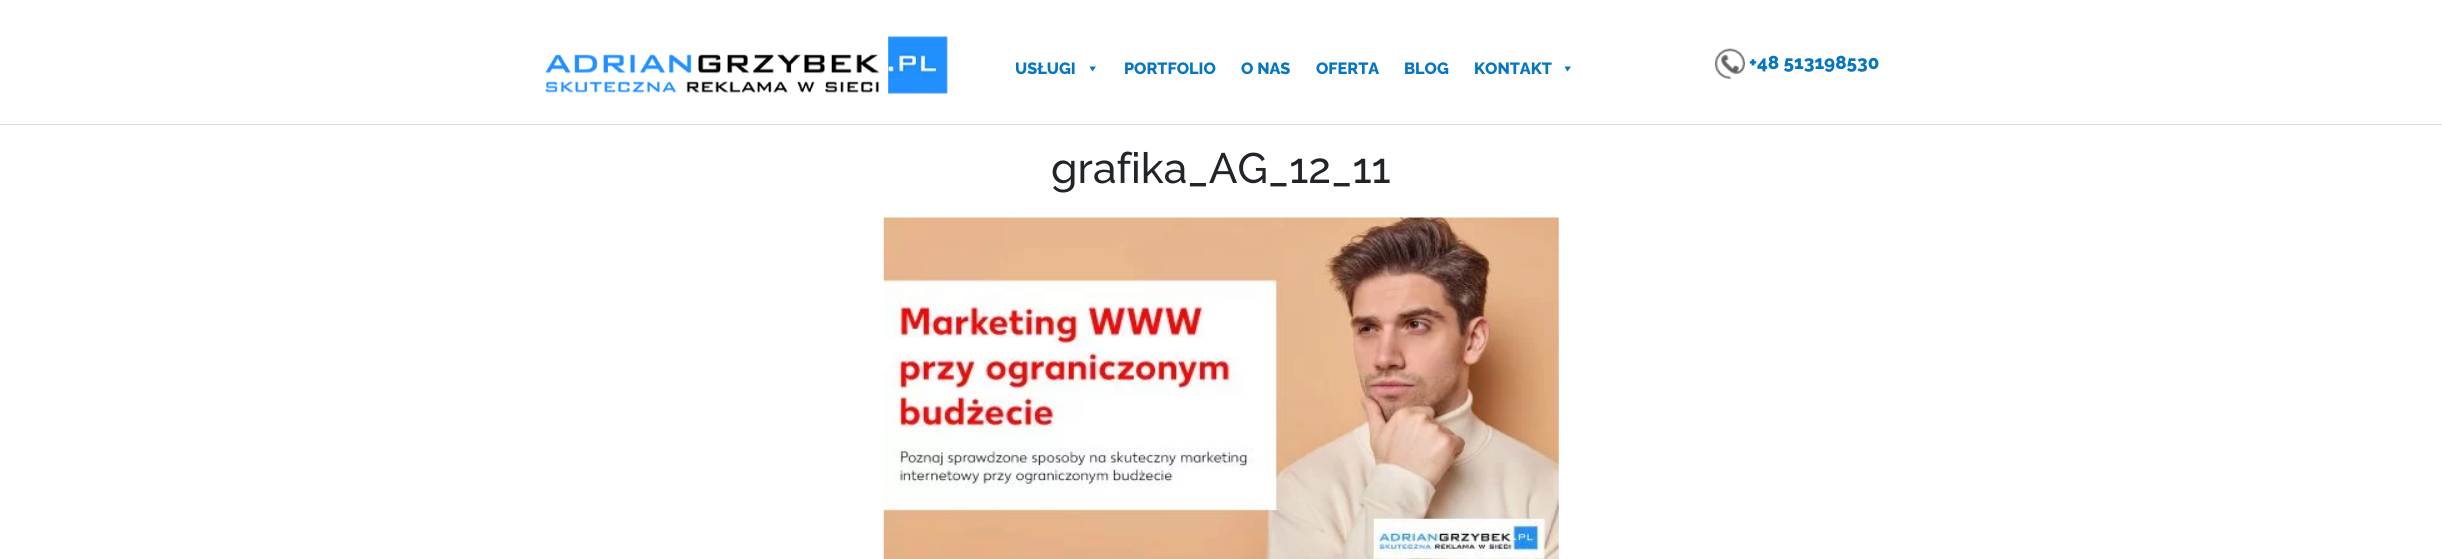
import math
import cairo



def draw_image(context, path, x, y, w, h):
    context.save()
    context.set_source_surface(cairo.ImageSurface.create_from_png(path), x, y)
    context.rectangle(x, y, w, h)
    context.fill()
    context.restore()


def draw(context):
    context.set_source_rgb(1, 1, 1)
    context.paint()
    context.set_source_rgb(226 / 255, 222 / 255, 220 / 255)
    context.rectangle(0, 124, 2442, 1)
    context.fill()
    draw_image(context, "images/1.png", 545, 36, 403, 59)
    context.set_source_rgb(6 / 255, 118 / 255, 193 / 255)
    context.new_path()
    context.move_to(1096, 66.5)
    context.line_to(1092.5, 71.5)
    context.line_to(1089.5, 66.5)
    context.close_path()
    context.fill()
    context.new_path()
    context.move_to(1571, 66.5)
    context.line_to(1567.5, 71.5)
    context.line_to(1564.5, 66.5)
    context.close_path()
    context.fill()
    draw_image(context, "images/2.png", 1715, 48, 30, 31)
    draw_image(context, "images/3.png", 883, 217, 676, 342)
    context.select_font_face("Raleway ExtraBold")
    context.set_font_size(16.25)
    context.move_to(1015, 74)
    context.show_text("USŁUGI")
    context.move_to(1124, 74)
    context.show_text("PORTFOLIO")
    context.move_to(1241, 74)
    context.show_text("O NAS")
    context.move_to(1316, 74)
    context.show_text("OFERTA")
    context.move_to(1404, 74)
    context.show_text("BLOG")
    context.move_to(1474, 74)
    context.show_text("KONTAKT")
    context.set_font_size(18.75)
    context.move_to(1749, 69)
    context.show_text("+48 513198530")
    context.select_font_face("Raleway Medium")
    context.set_font_size(42.5)
    context.set_source_rgb(33 / 255, 37 / 255, 41 / 255)
    context.move_to(1051, 183)
    context.show_text("grafika_AG_12_11")


surface = cairo.ImageSurface(cairo.Format.RGB24, 2442, 559)
context = cairo.Context(surface)
options = cairo.FontOptions()
options.set_hint_metrics(cairo.HintMetrics.OFF)
options.set_hint_style(cairo.HintStyle.NONE)
context.set_font_options(options)
context.set_miter_limit(4)
draw(context)
surface.write_to_png("out.png")
